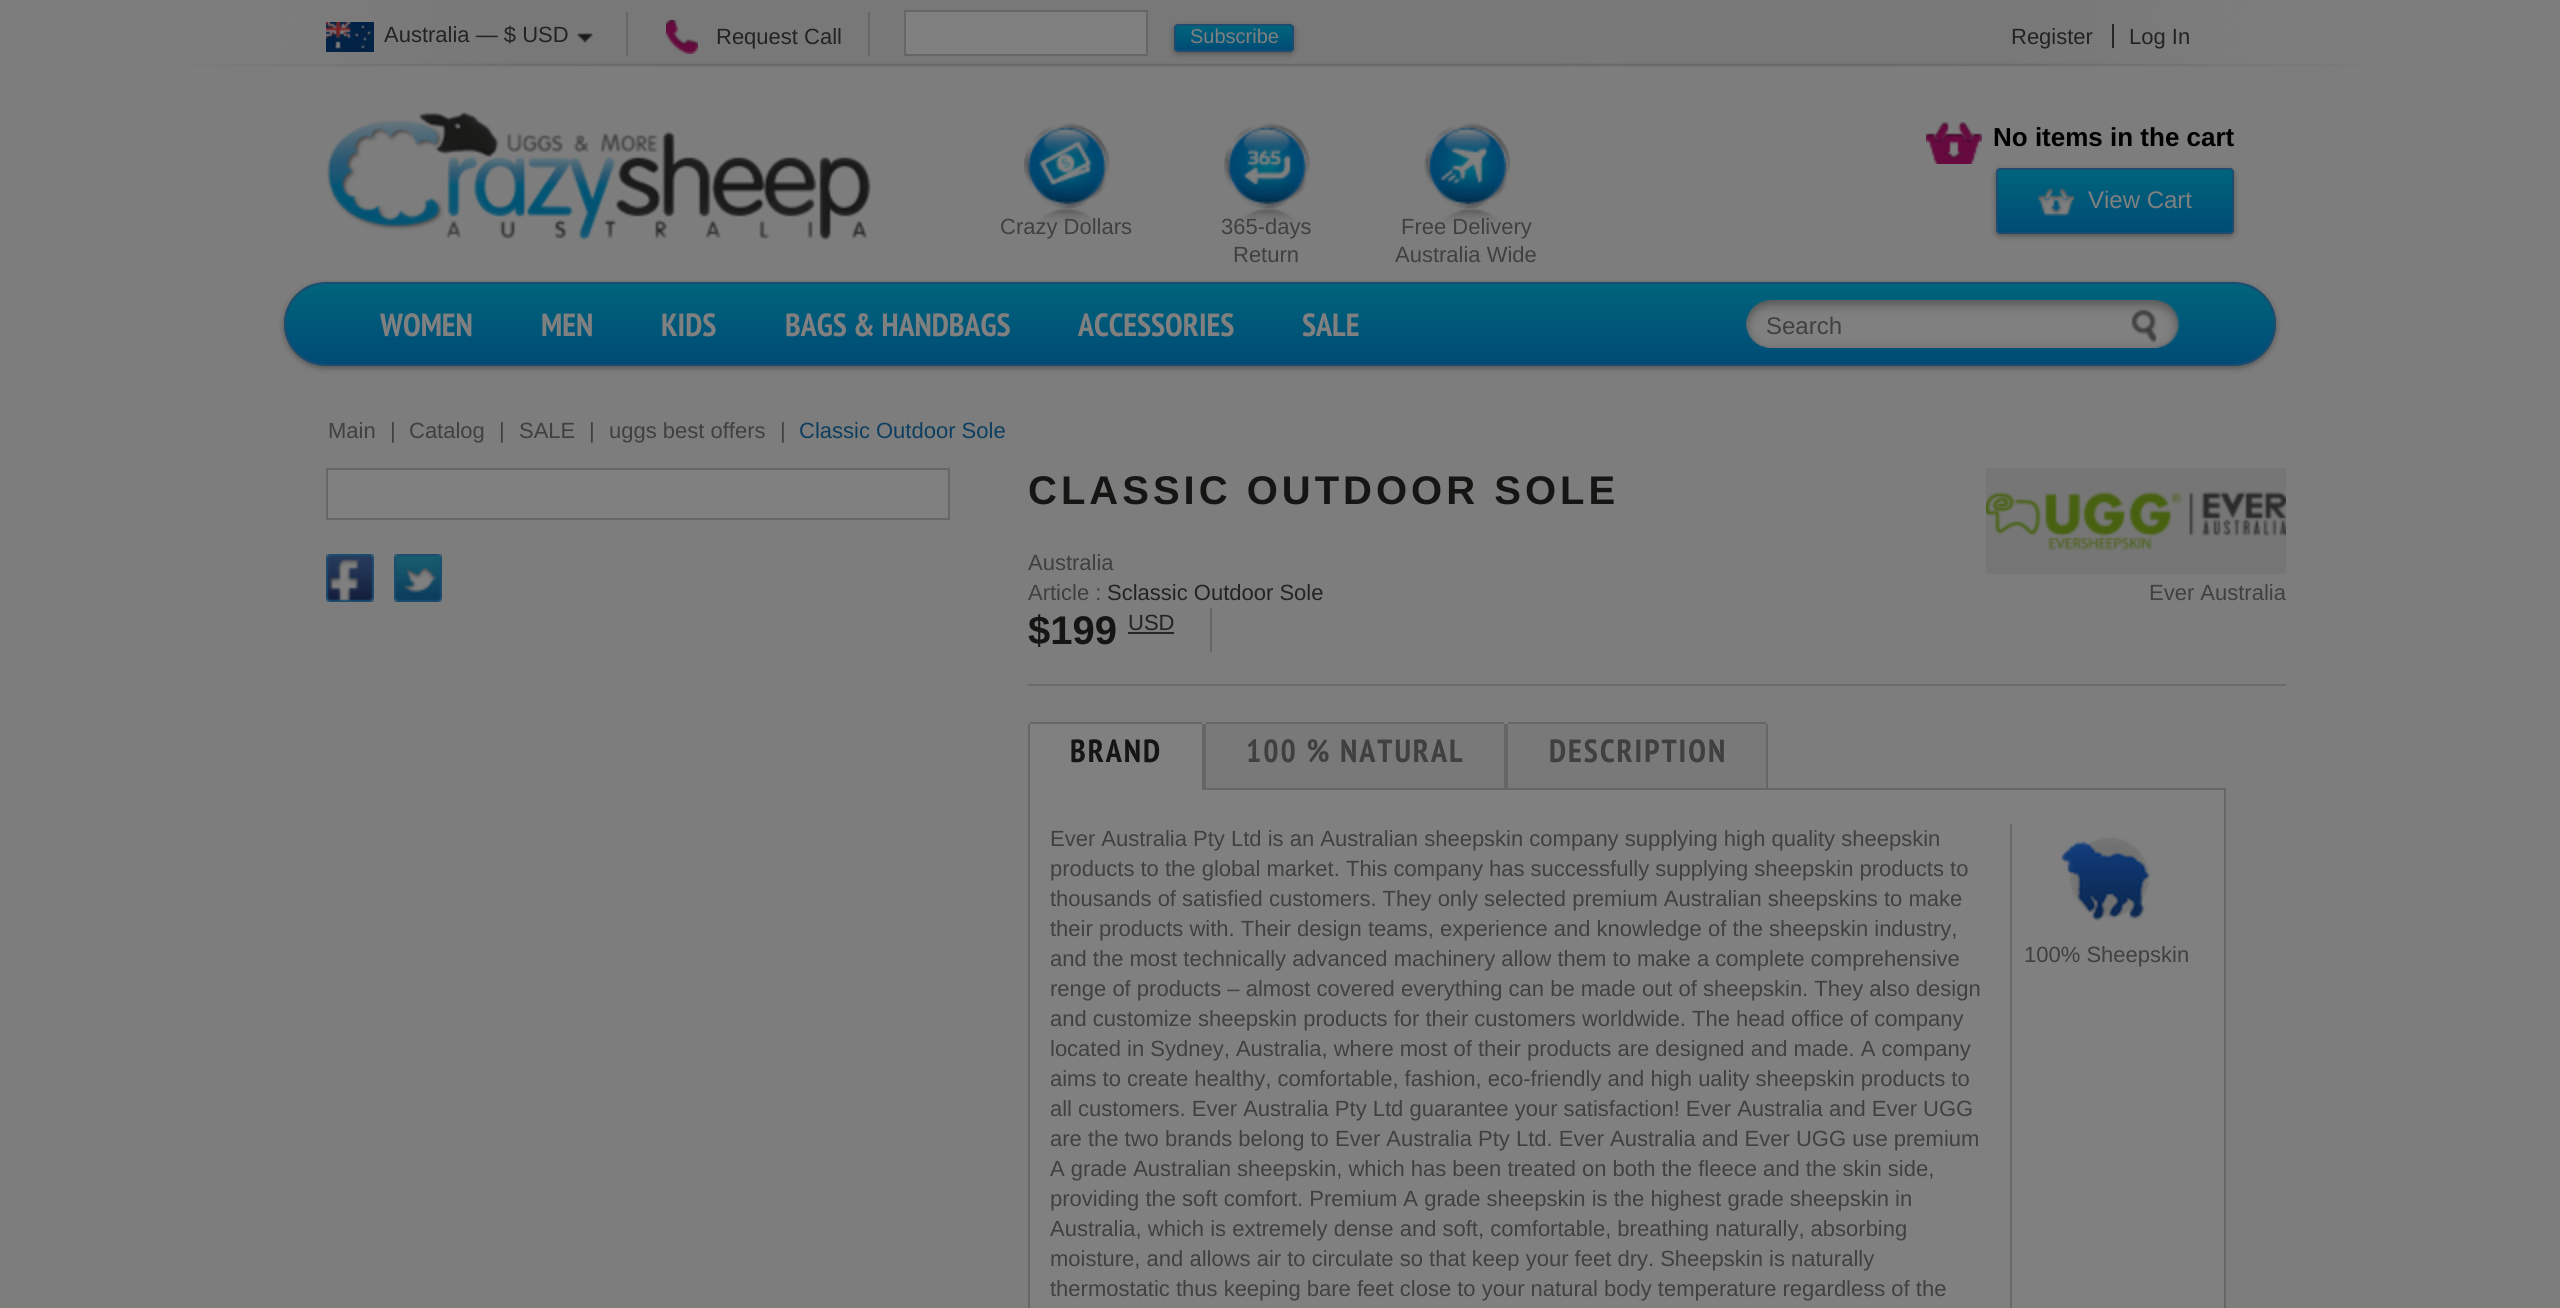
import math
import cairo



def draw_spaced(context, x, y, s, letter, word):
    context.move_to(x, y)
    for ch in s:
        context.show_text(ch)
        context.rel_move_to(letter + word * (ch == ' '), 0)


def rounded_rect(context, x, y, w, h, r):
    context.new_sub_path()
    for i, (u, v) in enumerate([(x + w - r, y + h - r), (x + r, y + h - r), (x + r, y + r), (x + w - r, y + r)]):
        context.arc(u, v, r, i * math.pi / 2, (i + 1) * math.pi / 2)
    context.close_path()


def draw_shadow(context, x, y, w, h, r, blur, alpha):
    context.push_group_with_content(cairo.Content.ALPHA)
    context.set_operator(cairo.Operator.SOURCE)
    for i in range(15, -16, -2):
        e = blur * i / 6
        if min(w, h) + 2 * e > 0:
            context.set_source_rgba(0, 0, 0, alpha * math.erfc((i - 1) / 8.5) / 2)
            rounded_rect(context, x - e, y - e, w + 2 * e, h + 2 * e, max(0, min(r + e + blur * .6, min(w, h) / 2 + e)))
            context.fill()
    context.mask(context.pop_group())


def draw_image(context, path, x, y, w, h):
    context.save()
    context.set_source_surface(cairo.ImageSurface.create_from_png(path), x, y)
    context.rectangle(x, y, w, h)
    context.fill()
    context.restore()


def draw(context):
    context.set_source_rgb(125 / 255, 125 / 255, 125 / 255)
    context.paint()
    draw_image(context, "images/1.png", 191, 0, 2170, 67)
    context.set_source_rgb(102 / 255, 102 / 255, 102 / 255)
    context.rectangle(626, 12, 2, 44)
    context.fill()
    draw_image(context, "images/2.png", 326, 22, 48, 30)
    draw_image(context, "images/3.png", 577, 33, 16, 10)
    context.rectangle(868, 12, 2, 44)
    context.fill()
    draw_image(context, "images/4.png", 666, 20, 32, 34)
    context.set_source_rgb(128 / 255, 128 / 255, 128 / 255)
    context.rectangle(905, 11, 242, 44)
    context.fill_preserve()
    context.set_source_rgb(102 / 255, 102 / 255, 102 / 255)
    context.stroke()
    context.set_source_rgb(85 / 255, 85 / 255, 85 / 255)
    draw_shadow(context, 1174, 26, 120, 28, 4, 3, 1)
    context.save()
    rounded_rect(context, 1174, 24, 120, 28, 4)
    context.clip()
    gradient = cairo.LinearGradient(1234, 26, 1234, 50)
    gradient.add_color_stop_rgba(0, 0, 100 / 255, 123 / 255, 1)
    gradient.add_color_stop_rgba(1, 0, 75 / 255, 118 / 255, 1)
    context.set_source(gradient)
    context.rectangle(1174, 26, 120, 24)
    context.fill()
    context.restore()
    rounded_rect(context, 1175, 25, 118, 26, 3)
    context.set_source_rgb(28 / 255, 76 / 255, 111 / 255)
    context.stroke()
    context.set_source_rgb(39 / 255, 39 / 255, 39 / 255)
    context.rectangle(2112, 24, 2, 24)
    context.fill()
    draw_image(context, "images/5.png", 326, 111, 545, 130)
    draw_image(context, "images/6.png", 1926, 122, 56, 42)
    context.set_source_rgb(85 / 255, 85 / 255, 85 / 255)
    draw_shadow(context, 1996, 170, 238, 66, 4, 3, 1)
    gradient = cairo.LinearGradient(2115, 170, 2115, 232)
    gradient.add_color_stop_rgba(0, 0, 100 / 255, 123 / 255, 1)
    gradient.add_color_stop_rgba(1, 0, 75 / 255, 118 / 255, 1)
    context.set_source(gradient)
    context.rectangle(1998, 170, 234, 62)
    context.fill()
    rounded_rect(context, 1997, 169, 236, 64, 3)
    context.set_source_rgb(28 / 255, 76 / 255, 111 / 255)
    context.stroke()
    draw_image(context, "images/7.png", 2038, 188, 36, 28)
    draw_image(context, "images/8.png", 1024, 123, 86, 101)
    draw_image(context, "images/9.png", 1224, 123, 86, 101)
    draw_image(context, "images/10.png", 1424, 123, 86, 101)
    context.set_source_rgb(85 / 255, 85 / 255, 85 / 255)
    draw_shadow(context, 284, 284, 1992, 84, 42, 3, 1)
    context.save()
    rounded_rect(context, 284, 282, 1992, 84, 42)
    context.clip()
    gradient = cairo.LinearGradient(1280, 284, 1280, 364)
    gradient.add_color_stop_rgba(0, 0, 100 / 255, 123 / 255, 1)
    gradient.add_color_stop_rgba(1, 0, 75 / 255, 118 / 255, 1)
    context.set_source(gradient)
    context.rectangle(284, 284, 1992, 80)
    context.fill()
    context.restore()
    rounded_rect(context, 285, 283, 1990, 82, 41)
    context.set_source_rgb(28 / 255, 76 / 255, 111 / 255)
    context.stroke()
    draw_image(context, "images/11.png", 1746, 300, 434, 48)
    context.set_source_rgb(128 / 255, 128 / 255, 128 / 255)
    context.rectangle(327, 469, 622, 50)
    context.fill_preserve()
    context.set_source_rgb(102 / 255, 102 / 255, 102 / 255)
    context.stroke()
    draw_image(context, "images/12.png", 326, 554, 48, 48)
    draw_image(context, "images/13.png", 394, 554, 48, 48)
    draw_image(context, "images/14.png", 1986, 468, 300, 106)
    context.rectangle(1210, 608, 2, 44)
    context.fill()
    context.set_source_rgb(38 / 255, 38 / 255, 38 / 255)
    context.rectangle(1128, 632, 46, 2)
    context.fill()
    context.set_source_rgb(107 / 255, 107 / 255, 107 / 255)
    context.rectangle(1028, 684, 1258, 2)
    context.fill()
    context.set_source_rgb(128 / 255, 128 / 255, 128 / 255)
    context.rectangle(1029, 789, 1196, 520)
    context.fill_preserve()
    context.set_source_rgb(102 / 255, 102 / 255, 102 / 255)
    context.stroke()
    context.set_source_rgb(128 / 255, 128 / 255, 128 / 255)
    context.new_path()
    context.move_to(1032, 722)
    context.line_to(1200, 722)
    context.curve_to(1202, 722, 1204, 724, 1204, 726)
    context.line_to(1204, 790)
    context.line_to(1028, 790)
    context.line_to(1028, 726)
    context.curve_to(1028, 724, 1030, 722, 1032, 722)
    context.close_path()
    context.fill()
    context.set_source_rgb(102 / 255, 102 / 255, 102 / 255)
    context.rectangle(1030, 722, 172, 2)
    context.fill()
    context.rectangle(1202, 724, 2, 66)
    context.fill()
    context.rectangle(1028, 724, 2, 66)
    context.fill()
    context.set_source_rgb(121 / 255, 121 / 255, 121 / 255)
    context.new_path()
    context.move_to(1208, 722)
    context.line_to(1502, 722)
    context.curve_to(1504, 722, 1506, 724, 1506, 726)
    context.line_to(1506, 788)
    context.line_to(1204, 788)
    context.line_to(1204, 726)
    context.curve_to(1204, 724, 1206, 722, 1208, 722)
    context.close_path()
    context.fill()
    context.set_source_rgb(102 / 255, 102 / 255, 102 / 255)
    context.rectangle(1206, 722, 298, 2)
    context.fill()
    context.rectangle(1504, 724, 2, 64)
    context.fill()
    context.rectangle(1204, 724, 2, 64)
    context.fill()
    context.set_source_rgb(121 / 255, 121 / 255, 121 / 255)
    context.new_path()
    context.move_to(1510, 722)
    context.line_to(1764, 722)
    context.curve_to(1766, 722, 1768, 724, 1768, 726)
    context.line_to(1768, 788)
    context.line_to(1506, 788)
    context.line_to(1506, 726)
    context.curve_to(1506, 724, 1508, 722, 1510, 722)
    context.close_path()
    context.fill()
    context.set_source_rgb(102 / 255, 102 / 255, 102 / 255)
    context.rectangle(1508, 722, 258, 2)
    context.fill()
    context.rectangle(1766, 724, 2, 64)
    context.fill()
    context.rectangle(1506, 724, 2, 64)
    context.fill()
    context.set_source_rgb(104 / 255, 104 / 255, 104 / 255)
    context.rectangle(2010, 824, 2, 484)
    context.fill()
    draw_image(context, "images/15.png", 2061, 837, 90, 84)
    context.select_font_face("Liberation Sans")
    context.set_font_size(22)
    context.set_source_rgb(35 / 255, 35 / 255, 35 / 255)
    context.move_to(384, 42)
    context.show_text("Australia — $ USD")
    context.move_to(716, 44)
    context.show_text("Request Call")
    context.set_font_size(20)
    context.set_source_rgb(128 / 255, 128 / 255, 128 / 255)
    context.move_to(1190, 43)
    context.show_text("Subscribe")
    context.set_font_size(22)
    context.set_source_rgb(35 / 255, 35 / 255, 35 / 255)
    context.move_to(2011, 44)
    context.show_text("Register")
    context.move_to(2129, 44)
    context.show_text("Log In")
    context.select_font_face("Liberation Sans", cairo.FontSlant.NORMAL, cairo.FontWeight.BOLD)
    context.set_font_size(26)
    context.set_source_rgb(0, 0, 0)
    context.move_to(1993, 146)
    context.show_text("No items in the cart")
    context.select_font_face("Liberation Sans")
    context.set_font_size(24)
    context.set_source_rgb(128 / 255, 128 / 255, 128 / 255)
    context.move_to(2088, 208)
    context.show_text("View Cart")
    context.set_font_size(22)
    context.set_source_rgb(64 / 255, 64 / 255, 64 / 255)
    context.move_to(1000, 234)
    context.show_text("Crazy Dollars")
    context.move_to(1221, 234)
    context.show_text("365-days")
    context.move_to(1233, 262)
    context.show_text("Return")
    context.move_to(1401, 234)
    context.show_text("Free Delivery")
    context.move_to(1395, 262)
    context.show_text("Australia Wide")
    context.select_font_face("PT Sans Narrow", cairo.FontSlant.NORMAL, cairo.FontWeight.BOLD)
    context.set_font_size(32)
    context.set_source_rgb(128 / 255, 128 / 255, 128 / 255)
    context.move_to(380, 336)
    context.show_text("WOMEN")
    context.move_to(541, 336)
    context.show_text("MEN")
    context.move_to(661, 336)
    context.show_text("KIDS")
    context.move_to(785, 336)
    context.show_text("BAGS & HANDBAGS")
    context.move_to(1078, 336)
    context.show_text("ACCESSORIES")
    context.move_to(1302, 336)
    context.show_text("SALE")
    context.select_font_face("Liberation Sans")
    context.set_font_size(24)
    context.set_source_rgb(64 / 255, 64 / 255, 64 / 255)
    context.move_to(1766, 334)
    context.show_text("Search")
    context.set_font_size(22)
    context.move_to(328, 438)
    context.show_text("Main")
    context.move_to(390, 438)
    context.show_text("|")
    context.move_to(409, 438)
    context.show_text("Catalog")
    context.move_to(499, 438)
    context.show_text("|")
    context.move_to(519, 438)
    context.show_text("SALE")
    context.move_to(589, 438)
    context.show_text("|")
    context.move_to(609, 438)
    context.show_text("uggs best offers")
    context.move_to(780, 438)
    context.show_text("|")
    context.set_source_rgb(14 / 255, 62 / 255, 95 / 255)
    context.move_to(799, 438)
    context.show_text("Classic Outdoor Sole")
    context.select_font_face("Liberation Sans", cairo.FontSlant.NORMAL, cairo.FontWeight.BOLD)
    context.set_font_size(40)
    context.set_source_rgb(21 / 255, 21 / 255, 20 / 255)
    draw_spaced(context, 1028, 504, "CLASSIC OUTDOOR SOLE", 4, 0)
    context.select_font_face("Liberation Sans")
    context.set_font_size(22)
    context.set_source_rgb(64 / 255, 64 / 255, 64 / 255)
    context.move_to(1028, 570)
    context.show_text("Australia")
    context.move_to(1028, 600)
    context.show_text("Article :")
    context.set_source_rgb(35 / 255, 35 / 255, 35 / 255)
    context.move_to(1107, 600)
    context.show_text("Sclassic Outdoor Sole")
    context.set_source_rgb(64 / 255, 64 / 255, 64 / 255)
    context.move_to(2149, 600)
    context.show_text("Ever Australia")
    context.select_font_face("Liberation Sans", cairo.FontSlant.NORMAL, cairo.FontWeight.BOLD)
    context.set_font_size(40)
    context.set_source_rgb(21 / 255, 21 / 255, 20 / 255)
    context.move_to(1028, 644)
    context.show_text("$199")
    context.select_font_face("Liberation Sans")
    context.set_font_size(22)
    context.set_source_rgb(35 / 255, 35 / 255, 35 / 255)
    context.move_to(1128, 630)
    context.show_text("USD")
    context.select_font_face("PT Sans Narrow", cairo.FontSlant.NORMAL, cairo.FontWeight.BOLD)
    context.set_font_size(32)
    context.set_source_rgb(21 / 255, 21 / 255, 20 / 255)
    draw_spaced(context, 1070, 762, "BRAND", 2, 0)
    context.set_source_rgb(64 / 255, 64 / 255, 64 / 255)
    draw_spaced(context, 1246, 762, "100 % NATURAL", 2, 0)
    draw_spaced(context, 1549, 762, "DESCRIPTION", 2, 0)
    context.select_font_face("Liberation Sans")
    context.set_font_size(22)
    context.move_to(1050, 846)
    context.show_text("Ever Australia Pty Ltd is an Australian sheepskin company supplying high quality sheepskin")
    context.move_to(1050, 876)
    context.show_text("products to the global market. This company has successfully supplying sheepskin products to")
    context.move_to(1050, 906)
    context.show_text("thousands of satisfied customers. They only selected premium Australian sheepskins to make")
    context.move_to(1050, 936)
    context.show_text("their products with. Their design teams, experience and knowledge of the sheepskin industry,")
    context.move_to(1050, 966)
    context.show_text("and the most technically advanced machinery allow them to make a complete comprehensive")
    context.move_to(1050, 996)
    context.show_text("renge of products – almost covered everything can be made out of sheepskin. They also design")
    context.move_to(1050, 1026)
    context.show_text("and customize sheepskin products for their customers worldwide. The head office of company")
    context.move_to(1050, 1056)
    context.show_text("located in Sydney, Australia, where most of their products are designed and made. A company")
    context.move_to(1050, 1086)
    context.show_text("aims to create healthy, comfortable, fashion, eco-friendly and high uality sheepskin products to")
    context.move_to(1050, 1116)
    context.show_text("all customers. Ever Australia Pty Ltd guarantee your satisfaction! Ever Australia and Ever UGG")
    context.move_to(1050, 1146)
    context.show_text("are the two brands belong to Ever Australia Pty Ltd. Ever Australia and Ever UGG use premium")
    context.move_to(1050, 1176)
    context.show_text("A grade Australian sheepskin, which has been treated on both the fleece and the skin side,")
    context.move_to(1050, 1206)
    context.show_text("providing the soft comfort. Premium A grade sheepskin is the highest grade sheepskin in")
    context.move_to(1050, 1236)
    context.show_text("Australia, which is extremely dense and soft, comfortable, breathing naturally, absorbing")
    context.move_to(1050, 1266)
    context.show_text("moisture, and allows air to circulate so that keep your feet dry. Sheepskin is naturally")
    context.move_to(1050, 1296)
    context.show_text("thermostatic thus keeping bare feet close to your natural body temperature regardless of the")
    context.move_to(2024, 962)
    context.show_text("100% Sheepskin")


surface = cairo.ImageSurface(cairo.Format.RGB24, 2560, 1308)
context = cairo.Context(surface)
options = cairo.FontOptions()
options.set_hint_metrics(cairo.HintMetrics.OFF)
options.set_hint_style(cairo.HintStyle.NONE)
context.set_font_options(options)
context.set_miter_limit(4)
draw(context)
surface.write_to_png("out.png")
